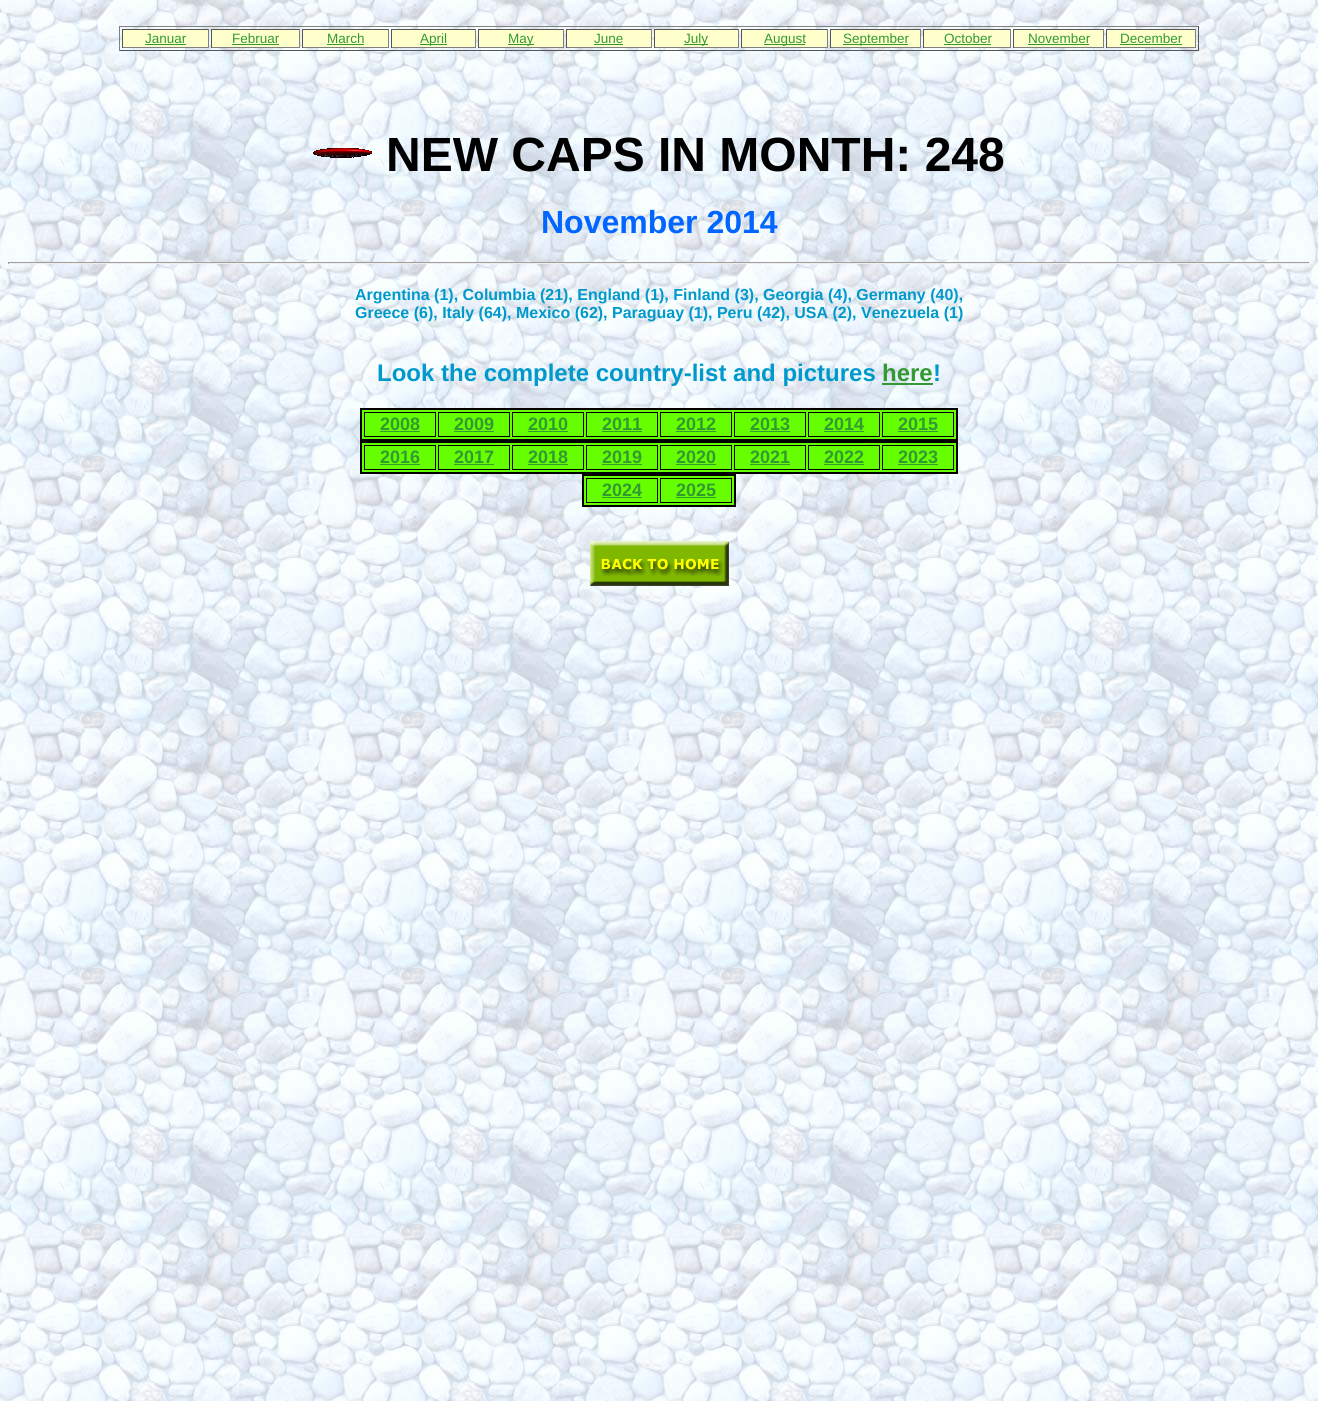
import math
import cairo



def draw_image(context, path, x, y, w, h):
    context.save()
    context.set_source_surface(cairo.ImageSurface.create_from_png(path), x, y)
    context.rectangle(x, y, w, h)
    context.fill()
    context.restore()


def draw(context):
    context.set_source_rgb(1, 1, 1)
    context.paint()
    draw_image(context, "images/1.png", 0, 0, 1318, 1401)
    context.set_source_rgb(128 / 255, 128 / 255, 128 / 255)
    context.rectangle(119, 26, 1080, 1)
    context.fill()
    context.set_source_rgb(85 / 255, 85 / 255, 85 / 255)
    context.rectangle(1198, 26, 1, 25)
    context.fill()
    context.rectangle(119, 50, 1080, 1)
    context.fill()
    context.set_source_rgb(128 / 255, 128 / 255, 128 / 255)
    context.rectangle(119, 26, 1, 25)
    context.fill()
    context.set_source_rgb(1, 1, 204 / 255)
    context.rectangle(123, 30, 85, 17)
    context.fill()
    context.set_source_rgb(85 / 255, 85 / 255, 85 / 255)
    context.rectangle(122, 29, 87, 1)
    context.fill()
    context.set_source_rgb(128 / 255, 128 / 255, 128 / 255)
    context.rectangle(208, 29, 1, 19)
    context.fill()
    context.rectangle(122, 47, 87, 1)
    context.fill()
    context.set_source_rgb(85 / 255, 85 / 255, 85 / 255)
    context.rectangle(122, 29, 1, 19)
    context.fill()
    context.set_source_rgb(51 / 255, 153 / 255, 51 / 255)
    context.rectangle(145, 44, 41, 1)
    context.fill()
    context.set_source_rgb(1, 1, 204 / 255)
    context.rectangle(212, 30, 87, 17)
    context.fill()
    context.set_source_rgb(85 / 255, 85 / 255, 85 / 255)
    context.rectangle(211, 29, 89, 1)
    context.fill()
    context.set_source_rgb(128 / 255, 128 / 255, 128 / 255)
    context.rectangle(299, 29, 1, 19)
    context.fill()
    context.rectangle(211, 47, 89, 1)
    context.fill()
    context.set_source_rgb(85 / 255, 85 / 255, 85 / 255)
    context.rectangle(211, 29, 1, 19)
    context.fill()
    context.set_source_rgb(51 / 255, 153 / 255, 51 / 255)
    context.rectangle(232, 44, 47, 1)
    context.fill()
    context.set_source_rgb(1, 1, 204 / 255)
    context.rectangle(303, 30, 85, 17)
    context.fill()
    context.set_source_rgb(85 / 255, 85 / 255, 85 / 255)
    context.rectangle(302, 29, 87, 1)
    context.fill()
    context.set_source_rgb(128 / 255, 128 / 255, 128 / 255)
    context.rectangle(388, 29, 1, 19)
    context.fill()
    context.rectangle(302, 47, 87, 1)
    context.fill()
    context.set_source_rgb(85 / 255, 85 / 255, 85 / 255)
    context.rectangle(302, 29, 1, 19)
    context.fill()
    context.set_source_rgb(51 / 255, 153 / 255, 51 / 255)
    context.rectangle(327, 44, 37, 1)
    context.fill()
    context.set_source_rgb(1, 1, 204 / 255)
    context.rectangle(392, 30, 83, 17)
    context.fill()
    context.set_source_rgb(85 / 255, 85 / 255, 85 / 255)
    context.rectangle(391, 29, 85, 1)
    context.fill()
    context.set_source_rgb(128 / 255, 128 / 255, 128 / 255)
    context.rectangle(475, 29, 1, 19)
    context.fill()
    context.rectangle(391, 47, 85, 1)
    context.fill()
    context.set_source_rgb(85 / 255, 85 / 255, 85 / 255)
    context.rectangle(391, 29, 1, 19)
    context.fill()
    context.set_source_rgb(51 / 255, 153 / 255, 51 / 255)
    context.rectangle(420, 44, 27, 1)
    context.fill()
    context.set_source_rgb(1, 1, 204 / 255)
    context.rectangle(479, 30, 84, 17)
    context.fill()
    context.set_source_rgb(85 / 255, 85 / 255, 85 / 255)
    context.rectangle(478, 29, 86, 1)
    context.fill()
    context.set_source_rgb(128 / 255, 128 / 255, 128 / 255)
    context.rectangle(563, 29, 1, 19)
    context.fill()
    context.rectangle(478, 47, 86, 1)
    context.fill()
    context.set_source_rgb(85 / 255, 85 / 255, 85 / 255)
    context.rectangle(478, 29, 1, 19)
    context.fill()
    context.set_source_rgb(51 / 255, 153 / 255, 51 / 255)
    context.rectangle(508, 44, 26, 1)
    context.fill()
    context.set_source_rgb(1, 1, 204 / 255)
    context.rectangle(567, 30, 84, 17)
    context.fill()
    context.set_source_rgb(85 / 255, 85 / 255, 85 / 255)
    context.rectangle(566, 29, 86, 1)
    context.fill()
    context.set_source_rgb(128 / 255, 128 / 255, 128 / 255)
    context.rectangle(651, 29, 1, 19)
    context.fill()
    context.rectangle(566, 47, 86, 1)
    context.fill()
    context.set_source_rgb(85 / 255, 85 / 255, 85 / 255)
    context.rectangle(566, 29, 1, 19)
    context.fill()
    context.set_source_rgb(51 / 255, 153 / 255, 51 / 255)
    context.rectangle(594, 44, 29, 1)
    context.fill()
    context.set_source_rgb(1, 1, 204 / 255)
    context.rectangle(655, 30, 83, 17)
    context.fill()
    context.set_source_rgb(85 / 255, 85 / 255, 85 / 255)
    context.rectangle(654, 29, 85, 1)
    context.fill()
    context.set_source_rgb(128 / 255, 128 / 255, 128 / 255)
    context.rectangle(738, 29, 1, 19)
    context.fill()
    context.rectangle(654, 47, 85, 1)
    context.fill()
    context.set_source_rgb(85 / 255, 85 / 255, 85 / 255)
    context.rectangle(654, 29, 1, 19)
    context.fill()
    context.set_source_rgb(51 / 255, 153 / 255, 51 / 255)
    context.rectangle(684, 44, 24, 1)
    context.fill()
    context.set_source_rgb(1, 1, 204 / 255)
    context.rectangle(742, 30, 85, 17)
    context.fill()
    context.set_source_rgb(85 / 255, 85 / 255, 85 / 255)
    context.rectangle(741, 29, 87, 1)
    context.fill()
    context.set_source_rgb(128 / 255, 128 / 255, 128 / 255)
    context.rectangle(827, 29, 1, 19)
    context.fill()
    context.rectangle(741, 47, 87, 1)
    context.fill()
    context.set_source_rgb(85 / 255, 85 / 255, 85 / 255)
    context.rectangle(741, 29, 1, 19)
    context.fill()
    context.set_source_rgb(51 / 255, 153 / 255, 51 / 255)
    context.rectangle(764, 44, 41, 1)
    context.fill()
    context.set_source_rgb(1, 1, 204 / 255)
    context.rectangle(831, 30, 89, 17)
    context.fill()
    context.set_source_rgb(85 / 255, 85 / 255, 85 / 255)
    context.rectangle(830, 29, 91, 1)
    context.fill()
    context.set_source_rgb(128 / 255, 128 / 255, 128 / 255)
    context.rectangle(920, 29, 1, 19)
    context.fill()
    context.rectangle(830, 47, 91, 1)
    context.fill()
    context.set_source_rgb(85 / 255, 85 / 255, 85 / 255)
    context.rectangle(830, 29, 1, 19)
    context.fill()
    context.set_source_rgb(51 / 255, 153 / 255, 51 / 255)
    context.rectangle(843, 44, 65, 1)
    context.fill()
    context.set_source_rgb(1, 1, 204 / 255)
    context.rectangle(924, 30, 86, 17)
    context.fill()
    context.set_source_rgb(85 / 255, 85 / 255, 85 / 255)
    context.rectangle(923, 29, 88, 1)
    context.fill()
    context.set_source_rgb(128 / 255, 128 / 255, 128 / 255)
    context.rectangle(1010, 29, 1, 19)
    context.fill()
    context.rectangle(923, 47, 88, 1)
    context.fill()
    context.set_source_rgb(85 / 255, 85 / 255, 85 / 255)
    context.rectangle(923, 29, 1, 19)
    context.fill()
    context.set_source_rgb(51 / 255, 153 / 255, 51 / 255)
    context.rectangle(944, 44, 47, 1)
    context.fill()
    context.set_source_rgb(1, 1, 204 / 255)
    context.rectangle(1014, 30, 89, 17)
    context.fill()
    context.set_source_rgb(85 / 255, 85 / 255, 85 / 255)
    context.rectangle(1013, 29, 91, 1)
    context.fill()
    context.set_source_rgb(128 / 255, 128 / 255, 128 / 255)
    context.rectangle(1103, 29, 1, 19)
    context.fill()
    context.rectangle(1013, 47, 91, 1)
    context.fill()
    context.set_source_rgb(85 / 255, 85 / 255, 85 / 255)
    context.rectangle(1013, 29, 1, 19)
    context.fill()
    context.set_source_rgb(51 / 255, 153 / 255, 51 / 255)
    context.rectangle(1028, 44, 61, 1)
    context.fill()
    context.set_source_rgb(1, 1, 204 / 255)
    context.rectangle(1107, 30, 88, 17)
    context.fill()
    context.set_source_rgb(85 / 255, 85 / 255, 85 / 255)
    context.rectangle(1106, 29, 90, 1)
    context.fill()
    context.set_source_rgb(128 / 255, 128 / 255, 128 / 255)
    context.rectangle(1195, 29, 1, 19)
    context.fill()
    context.rectangle(1106, 47, 90, 1)
    context.fill()
    context.set_source_rgb(85 / 255, 85 / 255, 85 / 255)
    context.rectangle(1106, 29, 1, 19)
    context.fill()
    context.set_source_rgb(51 / 255, 153 / 255, 51 / 255)
    context.rectangle(1120, 44, 62, 1)
    context.fill()
    draw_image(context, "images/2.png", 313, 148, 59, 10)
    context.set_source_rgb(159 / 255, 159 / 255, 159 / 255)
    context.rectangle(8, 262, 1302, 1)
    context.fill()
    context.set_source_rgb(238 / 255, 238 / 255, 238 / 255)
    context.rectangle(1309, 262, 1, 2)
    context.fill()
    context.rectangle(8, 263, 1302, 1)
    context.fill()
    context.set_source_rgb(159 / 255, 159 / 255, 159 / 255)
    context.rectangle(8, 262, 1, 2)
    context.fill()
    context.set_source_rgb(51 / 255, 153 / 255, 51 / 255)
    context.rectangle(882, 383, 51, 2)
    context.fill()
    context.set_source_rgb(102 / 255, 1, 0)
    context.rectangle(361, 409, 596, 31)
    context.fill_preserve()
    context.set_source_rgb(0, 0, 0)
    context.stroke()
    context.rectangle(364.5, 412.5, 71, 24)
    context.set_line_width(1)
    context.stroke()
    context.set_source_rgb(51 / 255, 153 / 255, 51 / 255)
    context.rectangle(380, 431, 40, 1)
    context.fill()
    context.rectangle(438.5, 412.5, 71, 24)
    context.set_source_rgb(0, 0, 0)
    context.stroke()
    context.set_source_rgb(51 / 255, 153 / 255, 51 / 255)
    context.rectangle(454, 431, 40, 1)
    context.fill()
    context.rectangle(512.5, 412.5, 71, 24)
    context.set_source_rgb(0, 0, 0)
    context.stroke()
    context.set_source_rgb(51 / 255, 153 / 255, 51 / 255)
    context.rectangle(528, 431, 40, 1)
    context.fill()
    context.rectangle(586.5, 412.5, 71, 24)
    context.set_source_rgb(0, 0, 0)
    context.stroke()
    context.set_source_rgb(51 / 255, 153 / 255, 51 / 255)
    context.rectangle(602, 431, 40, 1)
    context.fill()
    context.rectangle(660.5, 412.5, 71, 24)
    context.set_source_rgb(0, 0, 0)
    context.stroke()
    context.set_source_rgb(51 / 255, 153 / 255, 51 / 255)
    context.rectangle(676, 431, 40, 1)
    context.fill()
    context.rectangle(734.5, 412.5, 71, 24)
    context.set_source_rgb(0, 0, 0)
    context.stroke()
    context.set_source_rgb(51 / 255, 153 / 255, 51 / 255)
    context.rectangle(750, 431, 40, 1)
    context.fill()
    context.rectangle(808.5, 412.5, 71, 24)
    context.set_source_rgb(0, 0, 0)
    context.stroke()
    context.set_source_rgb(51 / 255, 153 / 255, 51 / 255)
    context.rectangle(824, 431, 40, 1)
    context.fill()
    context.rectangle(882.5, 412.5, 71, 24)
    context.set_source_rgb(0, 0, 0)
    context.stroke()
    context.set_source_rgb(51 / 255, 153 / 255, 51 / 255)
    context.rectangle(898, 431, 40, 1)
    context.fill()
    context.set_source_rgb(102 / 255, 1, 0)
    context.rectangle(361, 442, 596, 31)
    context.fill_preserve()
    context.set_source_rgb(0, 0, 0)
    context.set_line_width(2)
    context.stroke()
    context.rectangle(364.5, 445.5, 71, 24)
    context.set_line_width(1)
    context.stroke()
    context.set_source_rgb(51 / 255, 153 / 255, 51 / 255)
    context.rectangle(380, 464, 40, 1)
    context.fill()
    context.rectangle(438.5, 445.5, 71, 24)
    context.set_source_rgb(0, 0, 0)
    context.stroke()
    context.set_source_rgb(51 / 255, 153 / 255, 51 / 255)
    context.rectangle(454, 464, 40, 1)
    context.fill()
    context.rectangle(512.5, 445.5, 71, 24)
    context.set_source_rgb(0, 0, 0)
    context.stroke()
    context.set_source_rgb(51 / 255, 153 / 255, 51 / 255)
    context.rectangle(528, 464, 40, 1)
    context.fill()
    context.rectangle(586.5, 445.5, 71, 24)
    context.set_source_rgb(0, 0, 0)
    context.stroke()
    context.set_source_rgb(51 / 255, 153 / 255, 51 / 255)
    context.rectangle(602, 464, 40, 1)
    context.fill()
    context.rectangle(660.5, 445.5, 71, 24)
    context.set_source_rgb(0, 0, 0)
    context.stroke()
    context.set_source_rgb(51 / 255, 153 / 255, 51 / 255)
    context.rectangle(676, 464, 40, 1)
    context.fill()
    context.rectangle(734.5, 445.5, 71, 24)
    context.set_source_rgb(0, 0, 0)
    context.stroke()
    context.set_source_rgb(51 / 255, 153 / 255, 51 / 255)
    context.rectangle(750, 464, 40, 1)
    context.fill()
    context.rectangle(808.5, 445.5, 71, 24)
    context.set_source_rgb(0, 0, 0)
    context.stroke()
    context.set_source_rgb(51 / 255, 153 / 255, 51 / 255)
    context.rectangle(824, 464, 40, 1)
    context.fill()
    context.rectangle(882.5, 445.5, 71, 24)
    context.set_source_rgb(0, 0, 0)
    context.stroke()
    context.set_source_rgb(51 / 255, 153 / 255, 51 / 255)
    context.rectangle(898, 464, 40, 1)
    context.fill()
    context.set_source_rgb(102 / 255, 1, 0)
    context.rectangle(583, 475, 152, 31)
    context.fill_preserve()
    context.set_source_rgb(0, 0, 0)
    context.set_line_width(2)
    context.stroke()
    context.rectangle(586.5, 478.5, 71, 24)
    context.set_line_width(1)
    context.stroke()
    context.set_source_rgb(51 / 255, 153 / 255, 51 / 255)
    context.rectangle(602, 497, 40, 1)
    context.fill()
    context.rectangle(660.5, 478.5, 71, 24)
    context.set_source_rgb(0, 0, 0)
    context.stroke()
    context.set_source_rgb(51 / 255, 153 / 255, 51 / 255)
    context.rectangle(676, 497, 40, 1)
    context.fill()
    draw_image(context, "images/3.png", 590, 541, 139, 45)
    context.select_font_face("Liberation Sans")
    context.set_font_size(13.5)
    context.move_to(145, 43)
    context.show_text("Januar")
    context.move_to(232, 43)
    context.show_text("Februar")
    context.move_to(327, 43)
    context.show_text("March")
    context.move_to(420, 43)
    context.show_text("April")
    context.move_to(508, 43)
    context.show_text("May")
    context.move_to(594, 43)
    context.show_text("June")
    context.move_to(684, 43)
    context.show_text("July")
    context.move_to(764, 43)
    context.show_text("August")
    context.move_to(843, 43)
    context.show_text("September")
    context.move_to(944, 43)
    context.show_text("October")
    context.move_to(1028, 43)
    context.show_text("November")
    context.move_to(1120, 43)
    context.show_text("December")
    context.select_font_face("Liberation Sans", cairo.FontSlant.NORMAL, cairo.FontWeight.BOLD)
    context.set_font_size(48)
    context.set_source_rgb(0, 0, 0)
    context.move_to(386, 171)
    context.show_text("NEW CAPS IN MONTH: 248")
    context.set_font_size(32)
    context.set_source_rgb(0, 102 / 255, 1)
    context.move_to(541, 233)
    context.show_text("November 2014")
    context.set_font_size(16)
    context.set_source_rgb(0, 153 / 255, 204 / 255)
    context.move_to(355, 300)
    context.show_text("Argentina (1), Columbia (21), England (1), Finland (3), Georgia (4), Germany (40),")
    context.move_to(355, 318)
    context.show_text("Greece (6), Italy (64), Mexico (62), Paraguay (1), Peru (42), USA (2), Venezuela (1)")
    context.set_font_size(24)
    context.move_to(377, 381)
    context.show_text("Look the complete country-list and pictures")
    context.set_source_rgb(51 / 255, 153 / 255, 51 / 255)
    context.move_to(882, 381)
    context.show_text("here")
    context.set_source_rgb(0, 153 / 255, 204 / 255)
    context.move_to(933, 381)
    context.show_text("!")
    context.set_font_size(18)
    context.set_source_rgb(51 / 255, 153 / 255, 51 / 255)
    context.move_to(380, 430)
    context.show_text("2008")
    context.move_to(454, 430)
    context.show_text("2009")
    context.move_to(528, 430)
    context.show_text("2010")
    context.move_to(602, 430)
    context.show_text("2011")
    context.move_to(676, 430)
    context.show_text("2012")
    context.move_to(750, 430)
    context.show_text("2013")
    context.move_to(824, 430)
    context.show_text("2014")
    context.move_to(898, 430)
    context.show_text("2015")
    context.move_to(380, 463)
    context.show_text("2016")
    context.move_to(454, 463)
    context.show_text("2017")
    context.move_to(528, 463)
    context.show_text("2018")
    context.move_to(602, 463)
    context.show_text("2019")
    context.move_to(676, 463)
    context.show_text("2020")
    context.move_to(750, 463)
    context.show_text("2021")
    context.move_to(824, 463)
    context.show_text("2022")
    context.move_to(898, 463)
    context.show_text("2023")
    context.move_to(602, 496)
    context.show_text("2024")
    context.move_to(676, 496)
    context.show_text("2025")


surface = cairo.ImageSurface(cairo.Format.RGB24, 1318, 1401)
context = cairo.Context(surface)
options = cairo.FontOptions()
options.set_hint_metrics(cairo.HintMetrics.OFF)
options.set_hint_style(cairo.HintStyle.NONE)
context.set_font_options(options)
context.set_miter_limit(4)
draw(context)
surface.write_to_png("out.png")
